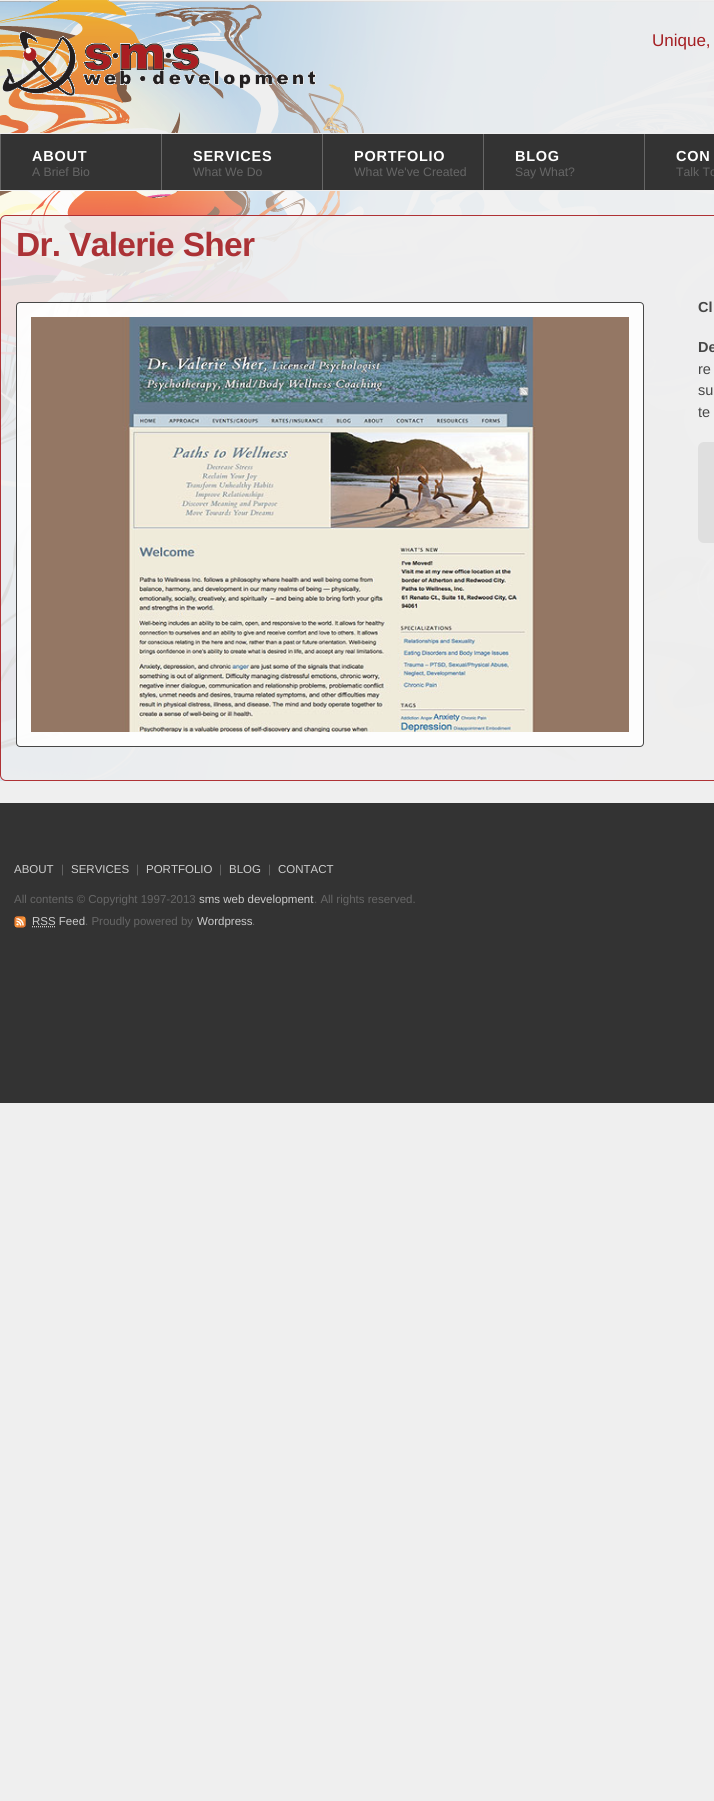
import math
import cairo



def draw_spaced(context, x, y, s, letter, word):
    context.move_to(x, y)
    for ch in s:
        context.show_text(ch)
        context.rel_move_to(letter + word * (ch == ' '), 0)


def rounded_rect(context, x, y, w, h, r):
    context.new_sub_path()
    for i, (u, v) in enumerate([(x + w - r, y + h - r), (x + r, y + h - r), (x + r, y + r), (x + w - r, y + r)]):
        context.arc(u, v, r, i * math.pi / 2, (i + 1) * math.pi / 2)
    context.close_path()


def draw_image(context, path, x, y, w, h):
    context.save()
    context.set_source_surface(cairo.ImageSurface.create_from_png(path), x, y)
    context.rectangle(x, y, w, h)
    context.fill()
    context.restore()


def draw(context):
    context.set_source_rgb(239 / 255, 239 / 255, 239 / 255)
    context.paint()
    draw_image(context, "images/1.png", 0, 0, 714, 133)
    draw_image(context, "images/2.png", 2, 31, 314, 65)
    context.set_source_rgb(51 / 255, 51 / 255, 51 / 255)
    context.rectangle(1, 134, 713, 56)
    context.fill()
    context.set_source_rgb(102 / 255, 102 / 255, 102 / 255)
    context.rectangle(0, 134, 1, 56)
    context.fill()
    context.rectangle(161, 134, 1, 56)
    context.fill()
    context.rectangle(322, 134, 1, 56)
    context.fill()
    context.rectangle(483, 134, 1, 56)
    context.fill()
    context.rectangle(644, 134, 1, 56)
    context.fill()
    draw_image(context, "images/3.png", 0, 191, 714, 590)
    context.set_source_rgba(239 / 255, 239 / 255, 239 / 255, 0.9)
    rounded_rect(context, 0, 215, 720, 566, 6)
    context.fill()
    rounded_rect(context, 0.5, 215.5, 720, 565, 5.5)
    context.set_source_rgba(169 / 255, 30 / 255, 34 / 255, 0.9)
    context.set_line_width(1)
    context.stroke()
    context.set_source_rgba(1, 1, 1, 0.9)
    rounded_rect(context, 16, 302, 628, 445, 4)
    context.fill()
    rounded_rect(context, 16.5, 302.5, 627, 444, 3.5)
    context.set_source_rgba(51 / 255, 51 / 255, 51 / 255, 0.9)
    context.stroke()
    draw_image(context, "images/4.png", 31, 317, 598, 415)
    context.set_source_rgb(223 / 255, 223 / 255, 223 / 255)
    rounded_rect(context, 698, 442, 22, 101, 6)
    context.fill()
    context.set_source_rgb(51 / 255, 51 / 255, 51 / 255)
    context.rectangle(0, 803, 714, 300)
    context.fill()
    draw_image(context, "images/5.png", 14, 916, 12, 12)
    context.new_path()
    context.move_to(32, 927.5)
    context.line_to(56, 927.5)
    context.set_source_rgb(102 / 255, 102 / 255, 102 / 255)
    context.set_dash([1, 1])
    context.stroke()
    context.new_path()
    context.move_to(32, 926.5)
    context.line_to(55.5, 926.5)
    context.set_source_rgb(204 / 255, 204 / 255, 204 / 255)
    context.stroke()
    context.select_font_face("Liberation Sans")
    context.set_font_size(17)
    context.set_source_rgb(164 / 255, 30 / 255, 34 / 255)
    context.move_to(652, 46)
    context.show_text("Unique,")
    context.select_font_face("Liberation Sans", cairo.FontSlant.NORMAL, cairo.FontWeight.BOLD)
    context.set_font_size(14.5)
    context.set_source_rgb(1, 1, 1)
    draw_spaced(context, 32, 161, "ABOUT", 0.75, 0)
    context.select_font_face("Liberation Sans")
    context.set_font_size(12.25)
    context.set_source_rgb(102 / 255, 102 / 255, 102 / 255)
    context.move_to(32, 176)
    context.show_text("A Brief Bio")
    context.select_font_face("Liberation Sans", cairo.FontSlant.NORMAL, cairo.FontWeight.BOLD)
    context.set_font_size(14.5)
    context.set_source_rgb(1, 1, 1)
    draw_spaced(context, 193, 161, "SERVICES", 0.75, 0)
    context.select_font_face("Liberation Sans")
    context.set_font_size(12.25)
    context.set_source_rgb(102 / 255, 102 / 255, 102 / 255)
    context.move_to(193, 176)
    context.show_text("What We Do")
    context.select_font_face("Liberation Sans", cairo.FontSlant.NORMAL, cairo.FontWeight.BOLD)
    context.set_font_size(14.5)
    context.set_source_rgb(1, 1, 1)
    draw_spaced(context, 354, 161, "PORTFOLIO", 0.75, 0)
    context.select_font_face("Liberation Sans")
    context.set_font_size(12.25)
    context.set_source_rgb(102 / 255, 102 / 255, 102 / 255)
    context.move_to(354, 176)
    context.show_text("What We've Created")
    context.select_font_face("Liberation Sans", cairo.FontSlant.NORMAL, cairo.FontWeight.BOLD)
    context.set_font_size(14.5)
    context.set_source_rgb(1, 1, 1)
    draw_spaced(context, 515, 161, "BLOG", 0.75, 0)
    context.select_font_face("Liberation Sans")
    context.set_font_size(12.25)
    context.set_source_rgb(102 / 255, 102 / 255, 102 / 255)
    context.move_to(515, 176)
    context.show_text("Say What?")
    context.select_font_face("Liberation Sans", cairo.FontSlant.NORMAL, cairo.FontWeight.BOLD)
    context.set_font_size(14.5)
    context.set_source_rgb(1, 1, 1)
    draw_spaced(context, 676, 161, "CON", 0.75, 0)
    context.select_font_face("Liberation Sans")
    context.set_font_size(12.25)
    context.set_source_rgb(102 / 255, 102 / 255, 102 / 255)
    context.move_to(676, 176)
    context.show_text("Talk To")
    context.select_font_face("Liberation Sans", cairo.FontSlant.NORMAL, cairo.FontWeight.BOLD)
    context.set_font_size(33.5)
    context.set_source_rgb(171 / 255, 50 / 255, 54 / 255)
    draw_spaced(context, 16, 256, "Dr. Valerie Sher", -0.7, 0)
    context.set_font_size(14.5)
    context.set_source_rgb(70 / 255, 70 / 255, 70 / 255)
    context.move_to(698, 312)
    context.show_text("Cl")
    context.move_to(698, 352)
    context.show_text("De")
    context.select_font_face("Liberation Sans")
    context.move_to(698, 374)
    context.show_text("re")
    context.move_to(698, 395)
    context.show_text("su")
    context.move_to(698, 417)
    context.show_text("te")
    context.set_font_size(11.5)
    context.set_source_rgb(204 / 255, 204 / 255, 204 / 255)
    context.move_to(14, 873)
    context.show_text("ABOUT")
    context.set_source_rgb(102 / 255, 102 / 255, 102 / 255)
    context.move_to(61, 873)
    context.show_text("|")
    context.set_source_rgb(204 / 255, 204 / 255, 204 / 255)
    context.move_to(71, 873)
    context.show_text("SERVICES")
    context.set_source_rgb(102 / 255, 102 / 255, 102 / 255)
    context.move_to(136, 873)
    context.show_text("|")
    context.set_source_rgb(204 / 255, 204 / 255, 204 / 255)
    context.move_to(146, 873)
    context.show_text("PORTFOLIO")
    context.set_source_rgb(102 / 255, 102 / 255, 102 / 255)
    context.move_to(219, 873)
    context.show_text("|")
    context.set_source_rgb(204 / 255, 204 / 255, 204 / 255)
    context.move_to(229, 873)
    context.show_text("BLOG")
    context.set_source_rgb(102 / 255, 102 / 255, 102 / 255)
    context.move_to(268, 873)
    context.show_text("|")
    context.set_source_rgb(204 / 255, 204 / 255, 204 / 255)
    context.move_to(278, 873)
    context.show_text("CONTACT")
    context.set_source_rgb(102 / 255, 102 / 255, 102 / 255)
    context.move_to(14, 903)
    context.show_text("All contents © Copyright 1997-2013")
    context.set_source_rgb(204 / 255, 204 / 255, 204 / 255)
    context.move_to(199, 903)
    context.show_text("sms web development")
    context.set_source_rgb(102 / 255, 102 / 255, 102 / 255)
    context.move_to(314, 903)
    context.show_text(". All rights reserved.")
    context.set_source_rgb(204 / 255, 204 / 255, 204 / 255)
    context.move_to(32, 925)
    context.show_text("RSS Feed")
    context.set_source_rgb(102 / 255, 102 / 255, 102 / 255)
    context.move_to(85, 925)
    context.show_text(". Proudly powered by")
    context.set_source_rgb(204 / 255, 204 / 255, 204 / 255)
    context.move_to(197, 925)
    context.show_text("Wordpress")
    context.set_source_rgb(102 / 255, 102 / 255, 102 / 255)
    context.move_to(252, 925)
    context.show_text(".")


surface = cairo.ImageSurface(cairo.Format.RGB24, 714, 1801)
context = cairo.Context(surface)
options = cairo.FontOptions()
options.set_hint_metrics(cairo.HintMetrics.OFF)
options.set_hint_style(cairo.HintStyle.NONE)
context.set_font_options(options)
context.set_miter_limit(4)
draw(context)
surface.write_to_png("out.png")
